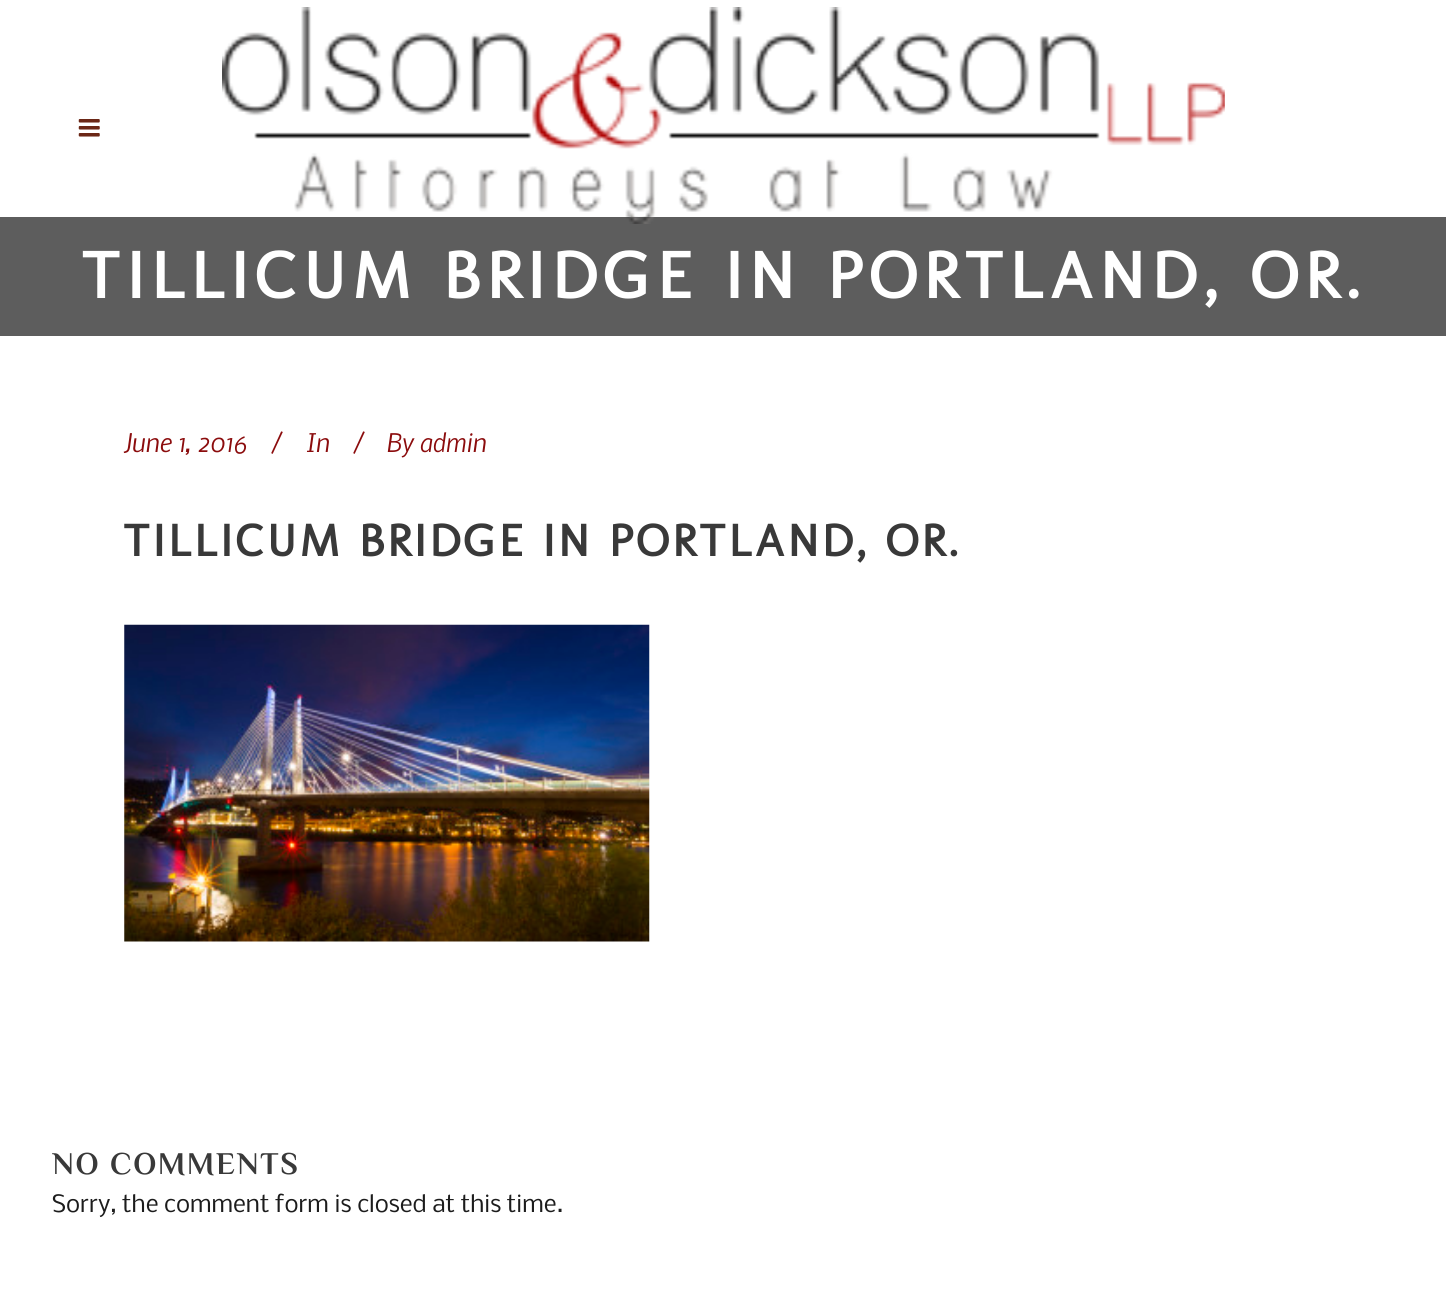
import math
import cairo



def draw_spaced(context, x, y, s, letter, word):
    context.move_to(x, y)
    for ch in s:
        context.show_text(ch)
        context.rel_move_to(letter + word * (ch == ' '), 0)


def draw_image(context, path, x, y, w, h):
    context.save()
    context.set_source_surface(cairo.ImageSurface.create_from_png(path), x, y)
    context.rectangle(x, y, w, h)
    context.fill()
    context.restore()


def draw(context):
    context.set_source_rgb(1, 1, 1)
    context.paint()
    draw_image(context, "images/1.png", 78, 119, 22, 18)
    context.set_source_rgb(93 / 255, 93 / 255, 93 / 255)
    context.rectangle(0, 217, 1446, 119)
    context.fill()
    draw_image(context, "images/2.png", 222, 7, 1003, 217)
    draw_image(context, "images/3.png", 124, 624, 526, 318)
    context.select_font_face("Molengo", cairo.FontSlant.NORMAL, cairo.FontWeight.BOLD)
    context.set_font_size(66.5)
    context.set_source_rgb(1, 1, 1)
    draw_spaced(context, 81, 298, "TILLICUM BRIDGE IN PORTLAND, OR.", 7, 0)
    context.select_font_face("Nobile", cairo.FontSlant.ITALIC)
    context.set_font_size(24.5)
    context.set_source_rgb(139 / 255, 12 / 255, 13 / 255)
    context.move_to(123, 452)
    context.show_text("June 1, 2016")
    context.move_to(270, 452)
    context.show_text("/")
    context.move_to(305, 452)
    context.show_text("In")
    context.move_to(352, 452)
    context.show_text("/")
    context.move_to(386, 452)
    context.show_text("By admin")
    context.select_font_face("Molengo", cairo.FontSlant.NORMAL, cairo.FontWeight.BOLD)
    context.set_font_size(45.5)
    context.set_source_rgb(57 / 255, 57 / 255, 57 / 255)
    draw_spaced(context, 123, 556, "TILLICUM BRIDGE IN PORTLAND, OR.", 3.5, 0)
    context.select_font_face("Philosopher", cairo.FontSlant.NORMAL, cairo.FontWeight.BOLD)
    context.set_font_size(31.5)
    draw_spaced(context, 52, 1174, "NO COMMENTS", 1.75, 0)
    context.select_font_face("Nobile")
    context.set_font_size(22.75)
    context.set_source_rgb(28 / 255, 28 / 255, 28 / 255)
    context.move_to(52, 1212)
    context.show_text("Sorry, the comment form is closed at this time.")


surface = cairo.ImageSurface(cairo.Format.RGB24, 1446, 1312)
context = cairo.Context(surface)
options = cairo.FontOptions()
options.set_hint_metrics(cairo.HintMetrics.OFF)
options.set_hint_style(cairo.HintStyle.NONE)
context.set_font_options(options)
context.set_miter_limit(4)
draw(context)
surface.write_to_png("out.png")
